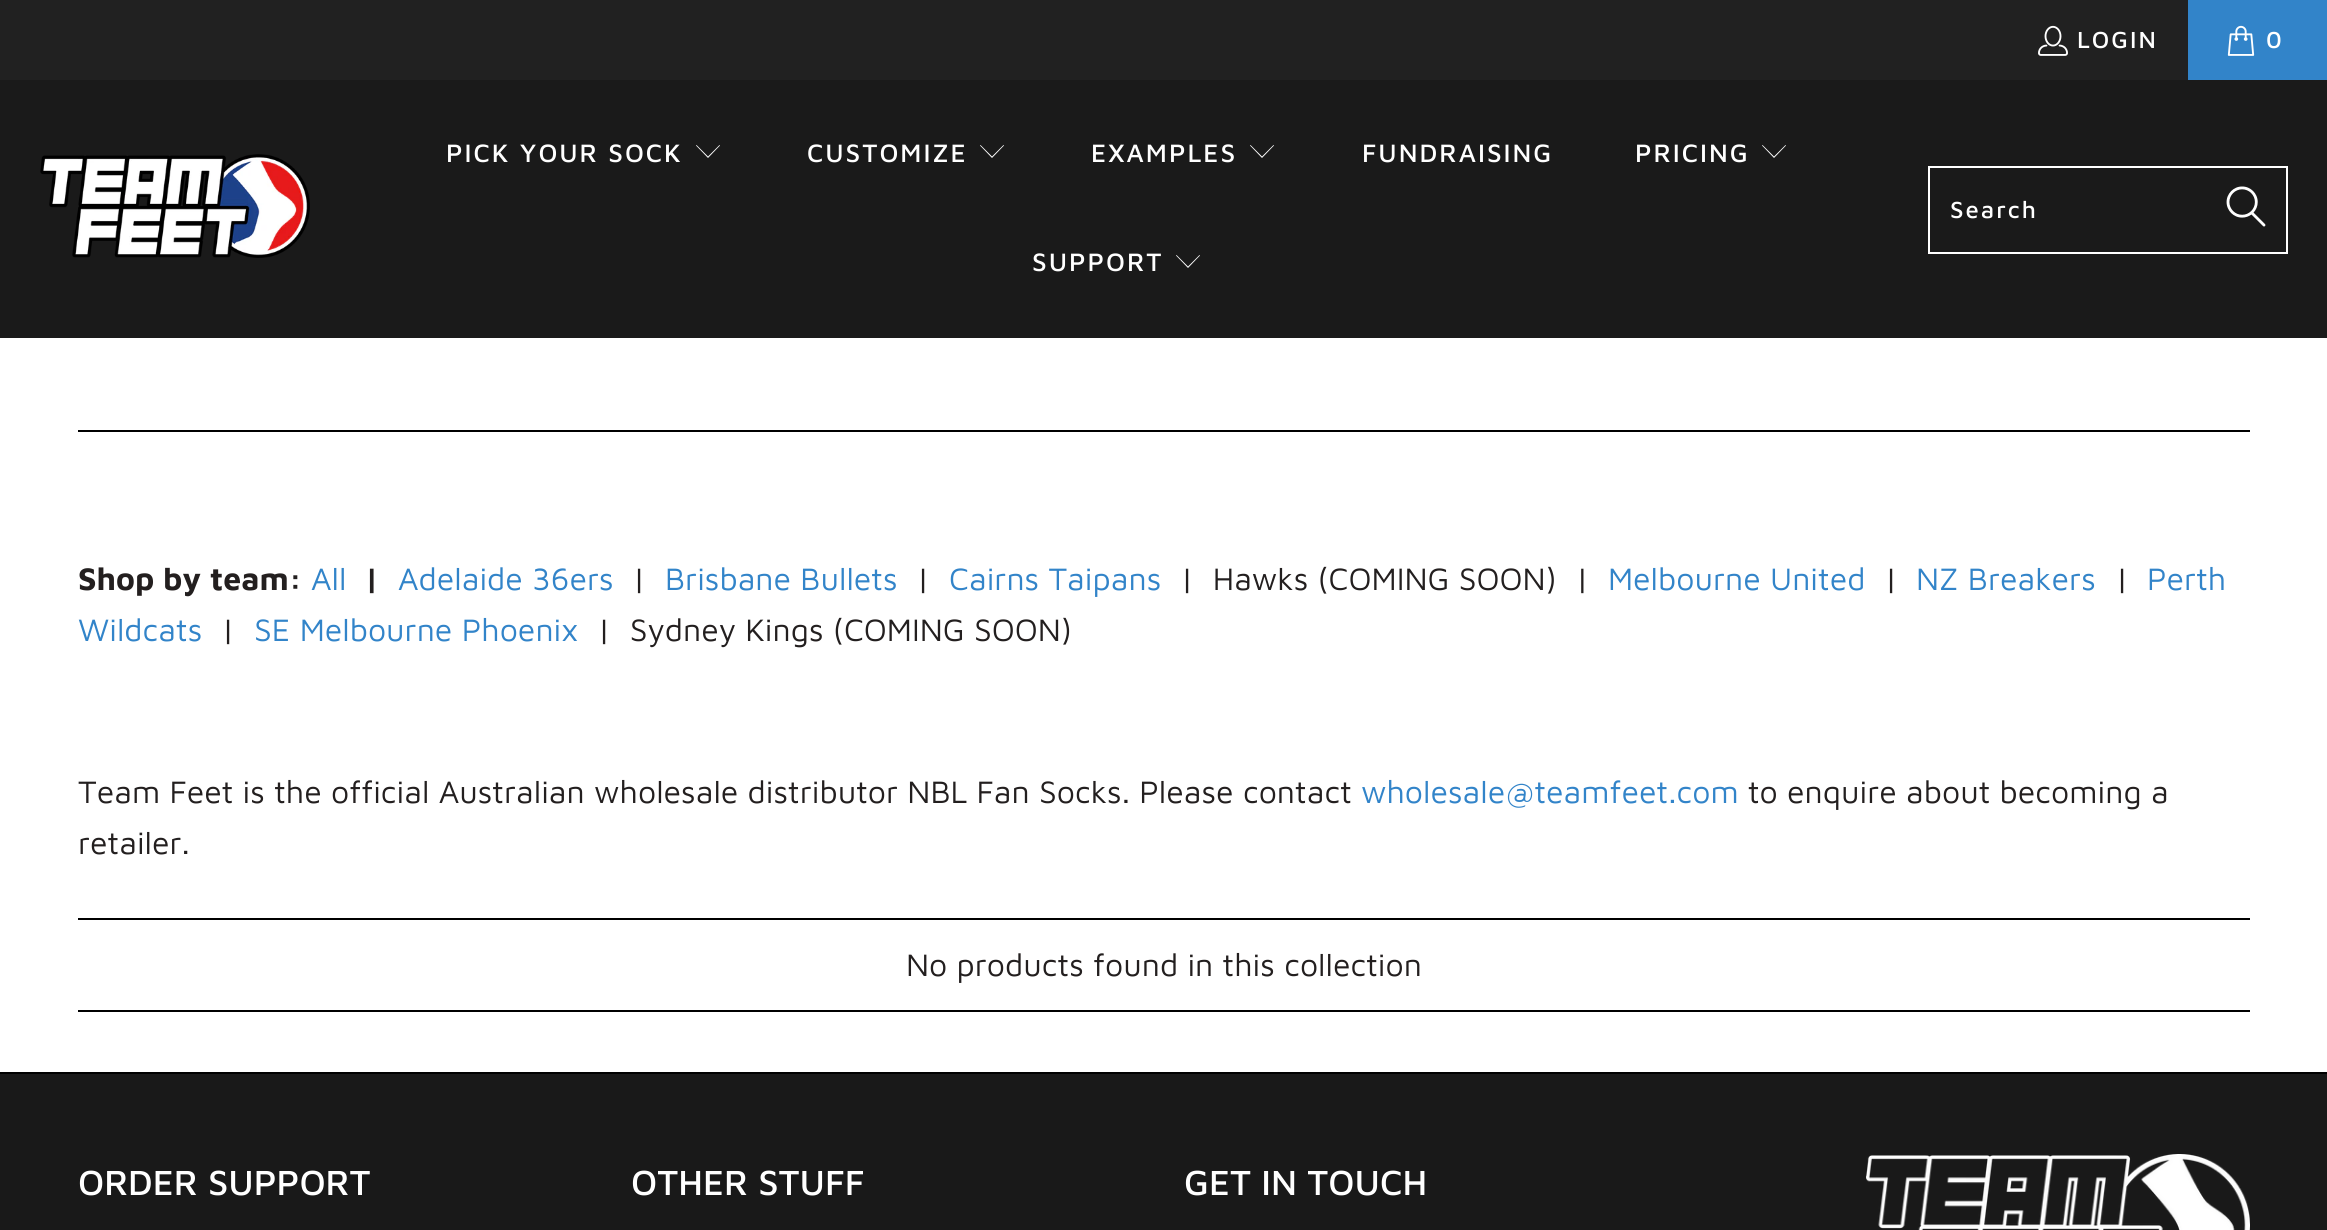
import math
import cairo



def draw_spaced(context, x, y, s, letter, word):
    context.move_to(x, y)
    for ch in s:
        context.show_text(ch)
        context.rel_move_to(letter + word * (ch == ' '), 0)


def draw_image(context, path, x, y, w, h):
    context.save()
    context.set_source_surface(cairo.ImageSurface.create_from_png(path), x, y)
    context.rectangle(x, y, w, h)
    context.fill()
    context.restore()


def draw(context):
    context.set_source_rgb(1, 1, 1)
    context.paint()
    context.set_source_rgb(33 / 255, 33 / 255, 33 / 255)
    context.rectangle(0, 0, 2188, 80)
    context.fill()
    draw_image(context, "images/1.png", 2038, 25, 30, 31)
    context.set_source_rgb(50 / 255, 132 / 255, 201 / 255)
    context.rectangle(2188, 0, 139, 80)
    context.fill()
    draw_image(context, "images/2.png", 2227, 25, 28, 31)
    context.set_source_rgb(26 / 255, 26 / 255, 26 / 255)
    context.rectangle(0, 80, 2327, 258)
    context.fill()
    draw_image(context, "images/3.png", 40, 154, 270, 104)
    context.set_source_rgb(1, 1, 1)
    context.new_path()
    context.move_to(708, 158)
    context.line_to(696, 145.5)
    context.line_to(696.5, 145)
    context.line_to(708, 156.5)
    context.line_to(719.5, 145)
    context.line_to(720, 145.5)
    context.close_path()
    context.fill()
    context.new_path()
    context.move_to(992, 158)
    context.line_to(980, 145.5)
    context.line_to(980.5, 145)
    context.line_to(992, 156.5)
    context.line_to(1003.5, 145)
    context.line_to(1004, 145.5)
    context.close_path()
    context.fill()
    context.new_path()
    context.move_to(1262, 158)
    context.line_to(1250, 145.5)
    context.line_to(1250.5, 145)
    context.line_to(1262, 156.5)
    context.line_to(1273.5, 145)
    context.line_to(1274, 145.5)
    context.close_path()
    context.fill()
    context.new_path()
    context.move_to(1774, 158)
    context.line_to(1762, 145.5)
    context.line_to(1762.5, 145)
    context.line_to(1774, 156.5)
    context.line_to(1785.5, 145)
    context.line_to(1786, 145.5)
    context.close_path()
    context.fill()
    context.new_path()
    context.move_to(1188, 268)
    context.line_to(1176, 255.5)
    context.line_to(1176.5, 255)
    context.line_to(1188, 266.5)
    context.line_to(1199.5, 255)
    context.line_to(1200, 255.5)
    context.close_path()
    context.fill()
    context.rectangle(1929, 167, 358, 86)
    context.stroke()
    draw_image(context, "images/4.png", 2226, 186, 40, 41)
    context.set_source_rgb(0, 0, 0)
    context.rectangle(78, 430, 2172, 2)
    context.fill()
    context.rectangle(78, 918, 2172, 2)
    context.fill()
    context.rectangle(78, 1010, 2172, 2)
    context.fill()
    context.set_source_rgb(25 / 255, 25 / 255, 25 / 255)
    context.rectangle(0, 1074, 2327, 156)
    context.fill()
    context.set_source_rgb(0, 0, 0)
    context.rectangle(0, 1072, 2327, 2)
    context.fill()
    draw_image(context, "images/5.png", 1866, 1154, 384, 76)
    context.select_font_face("Maven Pro Medium")
    context.set_font_size(24)
    context.set_source_rgb(1, 1, 1)
    draw_spaced(context, 2077, 48, "LOGIN", 2, 0)
    draw_spaced(context, 2266, 48, "0", 2, 0)
    context.set_font_size(26)
    draw_spaced(context, 446, 162, "PICK YOUR SOCK", 2, 0)
    draw_spaced(context, 807, 162, "CUSTOMIZE", 2, 0)
    draw_spaced(context, 1091, 162, "EXAMPLES", 2, 0)
    draw_spaced(context, 1362, 162, "FUNDRAISING", 2, 0)
    draw_spaced(context, 1635, 162, "PRICING", 2, 0)
    draw_spaced(context, 1032, 271, "SUPPORT", 2, 0)
    context.set_font_size(24)
    draw_spaced(context, 1950, 218, "Search", 2, 0)
    context.select_font_face("Maven Pro", cairo.FontSlant.NORMAL, cairo.FontWeight.BOLD)
    context.set_font_size(32)
    context.set_source_rgb(35 / 255, 31 / 255, 31 / 255)
    context.move_to(78, 590)
    context.show_text("Shop by team:")
    context.select_font_face("Maven Pro")
    context.set_source_rgb(50 / 255, 132 / 255, 201 / 255)
    context.move_to(311, 590)
    context.show_text("All")
    context.select_font_face("Maven Pro", cairo.FontSlant.NORMAL, cairo.FontWeight.BOLD)
    context.set_source_rgb(35 / 255, 31 / 255, 31 / 255)
    context.move_to(364, 590)
    context.show_text("|")
    context.select_font_face("Maven Pro")
    context.set_source_rgb(50 / 255, 132 / 255, 201 / 255)
    context.move_to(398, 590)
    context.show_text("Adelaide 36ers")
    context.set_source_rgb(35 / 255, 31 / 255, 31 / 255)
    context.move_to(632, 590)
    context.show_text("|")
    context.set_source_rgb(50 / 255, 132 / 255, 201 / 255)
    context.move_to(665, 590)
    context.show_text("Brisbane Bullets")
    context.set_source_rgb(35 / 255, 31 / 255, 31 / 255)
    context.move_to(916, 590)
    context.show_text("|")
    context.set_source_rgb(50 / 255, 132 / 255, 201 / 255)
    context.move_to(949, 590)
    context.show_text("Cairns Taipans")
    context.set_source_rgb(35 / 255, 31 / 255, 31 / 255)
    context.move_to(1180, 590)
    context.show_text("|  Hawks (COMING SOON)  |")
    context.set_source_rgb(50 / 255, 132 / 255, 201 / 255)
    context.move_to(1608, 590)
    context.show_text("Melbourne United")
    context.set_source_rgb(35 / 255, 31 / 255, 31 / 255)
    context.move_to(1884, 590)
    context.show_text("|")
    context.set_source_rgb(50 / 255, 132 / 255, 201 / 255)
    context.move_to(1916, 590)
    context.show_text("NZ Breakers")
    context.set_source_rgb(35 / 255, 31 / 255, 31 / 255)
    context.move_to(2115, 590)
    context.show_text("|")
    context.set_source_rgb(50 / 255, 132 / 255, 201 / 255)
    context.move_to(2147, 590)
    context.show_text("Perth")
    context.move_to(78, 641)
    context.show_text("Wildcats")
    context.set_source_rgb(35 / 255, 31 / 255, 31 / 255)
    context.move_to(221, 641)
    context.show_text("|")
    context.set_source_rgb(50 / 255, 132 / 255, 201 / 255)
    context.move_to(254, 641)
    context.show_text("SE Melbourne Phoenix")
    context.set_source_rgb(35 / 255, 31 / 255, 31 / 255)
    context.move_to(597, 641)
    context.show_text("|  Sydney Kings (COMING SOON)")
    context.move_to(78, 803)
    context.show_text("Team Feet is the official Australian wholesale distributor NBL Fan Socks. Please contact")
    context.set_source_rgb(50 / 255, 132 / 255, 201 / 255)
    context.move_to(1361, 803)
    context.show_text("wholesale@teamfeet.com")
    context.set_source_rgb(35 / 255, 31 / 255, 31 / 255)
    context.move_to(1748, 803)
    context.show_text("to enquire about becoming a")
    context.move_to(78, 854)
    context.show_text("retailer.")
    context.move_to(906, 976)
    context.show_text("No products found in this collection")
    context.select_font_face("Maven Pro Medium")
    context.set_font_size(36)
    context.set_source_rgb(1, 1, 1)
    context.move_to(78, 1195)
    context.show_text("ORDER SUPPORT")
    context.move_to(631, 1195)
    context.show_text("OTHER STUFF")
    context.move_to(1184, 1195)
    context.show_text("GET IN TOUCH")


surface = cairo.ImageSurface(cairo.Format.RGB24, 2327, 1230)
context = cairo.Context(surface)
options = cairo.FontOptions()
options.set_hint_metrics(cairo.HintMetrics.OFF)
options.set_hint_style(cairo.HintStyle.NONE)
context.set_font_options(options)
context.set_miter_limit(4)
draw(context)
surface.write_to_png("out.png")
